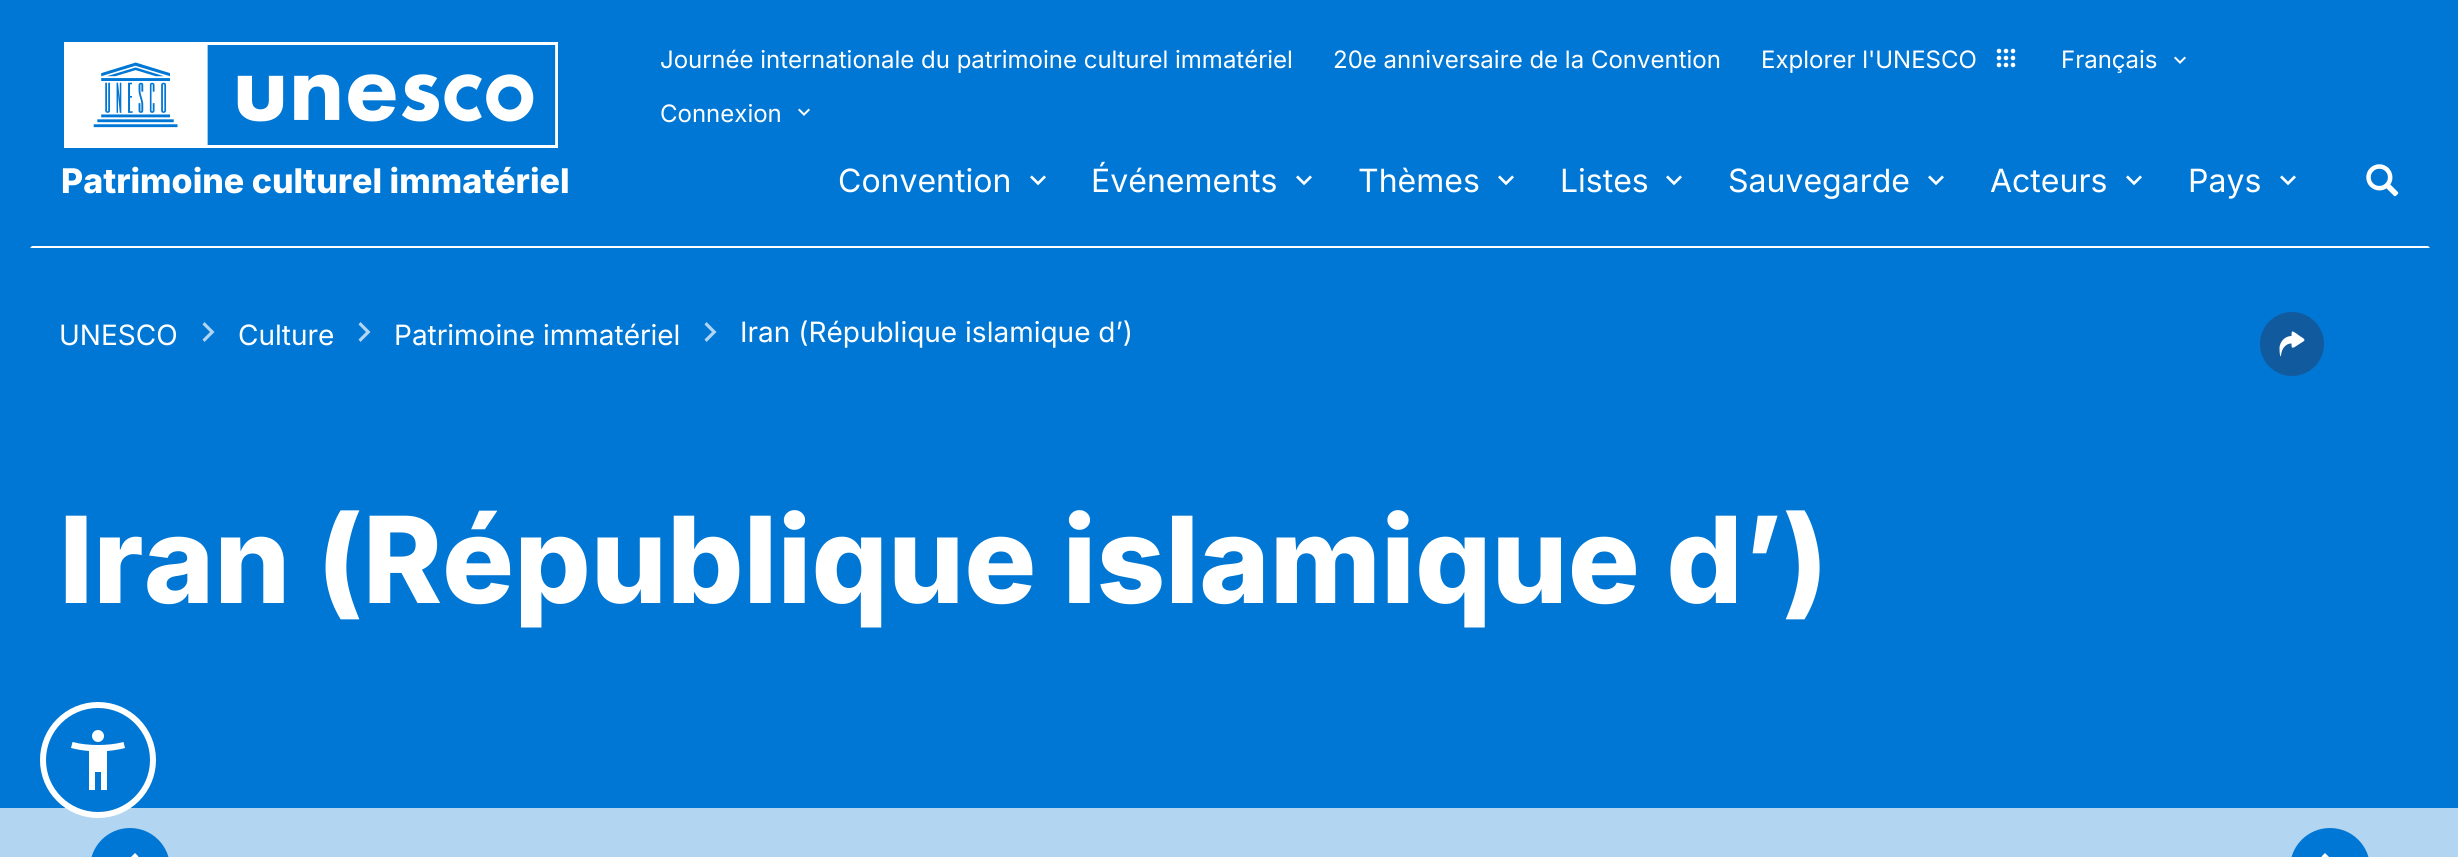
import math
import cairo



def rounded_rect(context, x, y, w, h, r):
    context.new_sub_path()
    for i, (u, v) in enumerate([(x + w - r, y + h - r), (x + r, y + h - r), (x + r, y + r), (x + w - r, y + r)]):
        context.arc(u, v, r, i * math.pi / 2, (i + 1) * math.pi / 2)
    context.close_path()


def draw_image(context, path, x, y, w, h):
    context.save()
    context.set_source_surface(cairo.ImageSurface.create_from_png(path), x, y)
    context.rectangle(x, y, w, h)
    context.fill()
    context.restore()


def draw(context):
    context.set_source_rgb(0, 119 / 255, 212 / 255)
    context.paint()
    context.set_source_rgb(1, 1, 1)
    context.new_path()
    context.move_to(2430, 248)
    context.line_to(30, 248)
    context.line_to(32, 246)
    context.line_to(2428, 246)
    context.close_path()
    context.fill()
    draw_image(context, "images/1.png", 64, 42, 494, 106)
    draw_image(context, "images/2.png", 1996, 48, 20, 20)
    draw_image(context, "images/3.png", 2174, 56, 12, 8)
    draw_image(context, "images/3.png", 798, 108, 12, 8)
    draw_image(context, "images/4.png", 1030, 175, 16, 11)
    draw_image(context, "images/4.png", 1296, 175, 16, 11)
    draw_image(context, "images/4.png", 1498, 175, 16, 11)
    draw_image(context, "images/4.png", 1666, 175, 16, 11)
    draw_image(context, "images/4.png", 1928, 175, 16, 11)
    draw_image(context, "images/4.png", 2126, 175, 16, 11)
    draw_image(context, "images/4.png", 2280, 175, 16, 11)
    draw_image(context, "images/5.png", 2366, 164, 33, 33)
    context.set_source_rgb(178 / 255, 214 / 255, 242 / 255)
    context.new_path()
    context.move_to(204.5, 322)
    context.line_to(202.5, 324.5)
    context.line_to(210, 332)
    context.line_to(202.5, 339.5)
    context.line_to(204.5, 342)
    context.line_to(214.5, 332)
    context.close_path()
    context.fill()
    context.new_path()
    context.move_to(360.5, 322)
    context.line_to(358.5, 324.5)
    context.line_to(366, 332)
    context.line_to(358.5, 339.5)
    context.line_to(360.5, 342)
    context.line_to(370.5, 332)
    context.close_path()
    context.fill()
    context.new_path()
    context.move_to(706.5, 322)
    context.line_to(704.5, 324.5)
    context.line_to(712, 332)
    context.line_to(704.5, 339.5)
    context.line_to(706.5, 342)
    context.line_to(716.5, 332)
    context.close_path()
    context.fill()
    context.set_source_rgb(17 / 255, 90 / 255, 158 / 255)
    context.arc(2292, 344, 32, 0, 2 * math.pi)
    context.fill()
    context.set_source_rgb(1, 1, 1)
    context.new_path()
    context.move_to(2304, 341)
    context.curve_to(2306, 339, 2301, 337, 2300.5, 336.5)
    context.line_to(2297, 334)
    context.curve_to(2292, 330.5, 2291.5, 330, 2291.5, 336)
    context.curve_to(2285, 336, 2280, 341.5, 2279.5, 347.5)
    context.curve_to(2279.5, 350, 2279.5, 354.5, 2280.5, 356)
    context.line_to(2281, 356.5)
    context.curve_to(2281, 350.5, 2284.5, 343.5, 2291.5, 343.5)
    context.curve_to(2291.5, 347.5, 2291.5, 349, 2295.5, 346.5)
    context.close_path()
    context.fill()
    context.set_source_rgb(178 / 255, 214 / 255, 242 / 255)
    context.rectangle(0, 808, 2458, 49)
    context.fill()
    context.set_source_rgb(0, 119 / 255, 212 / 255)
    context.arc(98, 760, 55, 0, 2 * math.pi)
    context.fill_preserve()
    context.set_source_rgb(1, 1, 1)
    context.set_line_width(6)
    context.stroke()
    draw_image(context, "images/6.png", 71, 730, 54, 60)
    context.set_source_rgb(0, 119 / 255, 212 / 255)
    rounded_rect(context, 90, 828, 80, 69, 40)
    context.fill()
    context.set_source_rgb(1, 1, 1)
    context.new_path()
    context.move_to(138.5, 856.5)
    context.line_to(135, 853)
    context.line_to(120, 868)
    context.line_to(135, 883)
    context.line_to(138.5, 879.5)
    context.line_to(127, 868)
    context.close_path()
    context.fill()
    context.set_source_rgb(0, 119 / 255, 212 / 255)
    rounded_rect(context, 2290, 828, 80, 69, 40)
    context.fill()
    context.set_source_rgb(1, 1, 1)
    context.new_path()
    context.move_to(2325, 853)
    context.line_to(2321.5, 856.5)
    context.line_to(2333, 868)
    context.line_to(2321.5, 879.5)
    context.line_to(2325, 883)
    context.line_to(2340, 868)
    context.close_path()
    context.fill()
    context.select_font_face("Inter ExtraBold")
    context.set_font_size(34)
    context.move_to(61, 193)
    context.show_text("Patrimoine culturel immatériel")
    context.select_font_face("Inter")
    context.set_font_size(24)
    context.move_to(660, 68)
    context.show_text("Journée internationale du patrimoine culturel immatériel")
    context.move_to(1333, 68)
    context.show_text("20e anniversaire de la Convention")
    context.move_to(1761, 68)
    context.show_text("Explorer l'UNESCO")
    context.move_to(2061, 68)
    context.show_text("Français")
    context.move_to(660, 122)
    context.show_text("Connexion")
    context.set_font_size(32)
    context.move_to(838, 192)
    context.show_text("Convention")
    context.move_to(1091, 192)
    context.show_text("Événements")
    context.move_to(1358, 192)
    context.show_text("Thèmes")
    context.move_to(1560, 192)
    context.show_text("Listes")
    context.move_to(1728, 192)
    context.show_text("Sauvegarde")
    context.move_to(1990, 192)
    context.show_text("Acteurs")
    context.move_to(2188, 192)
    context.show_text("Pays")
    context.set_font_size(28)
    context.move_to(59, 345)
    context.show_text("UNESCO")
    context.move_to(238, 345)
    context.show_text("Culture")
    context.move_to(394, 345)
    context.show_text("Patrimoine immatériel")
    context.move_to(740, 342)
    context.show_text("Iran (République islamique d’)")
    context.select_font_face("Inter ExtraBold")
    context.set_font_size(120)
    context.move_to(59, 603)
    context.show_text("Iran (République islamique d’)")


surface = cairo.ImageSurface(cairo.Format.RGB24, 2458, 857)
context = cairo.Context(surface)
options = cairo.FontOptions()
options.set_hint_metrics(cairo.HintMetrics.OFF)
options.set_hint_style(cairo.HintStyle.NONE)
context.set_font_options(options)
context.set_miter_limit(4)
draw(context)
surface.write_to_png("out.png")
